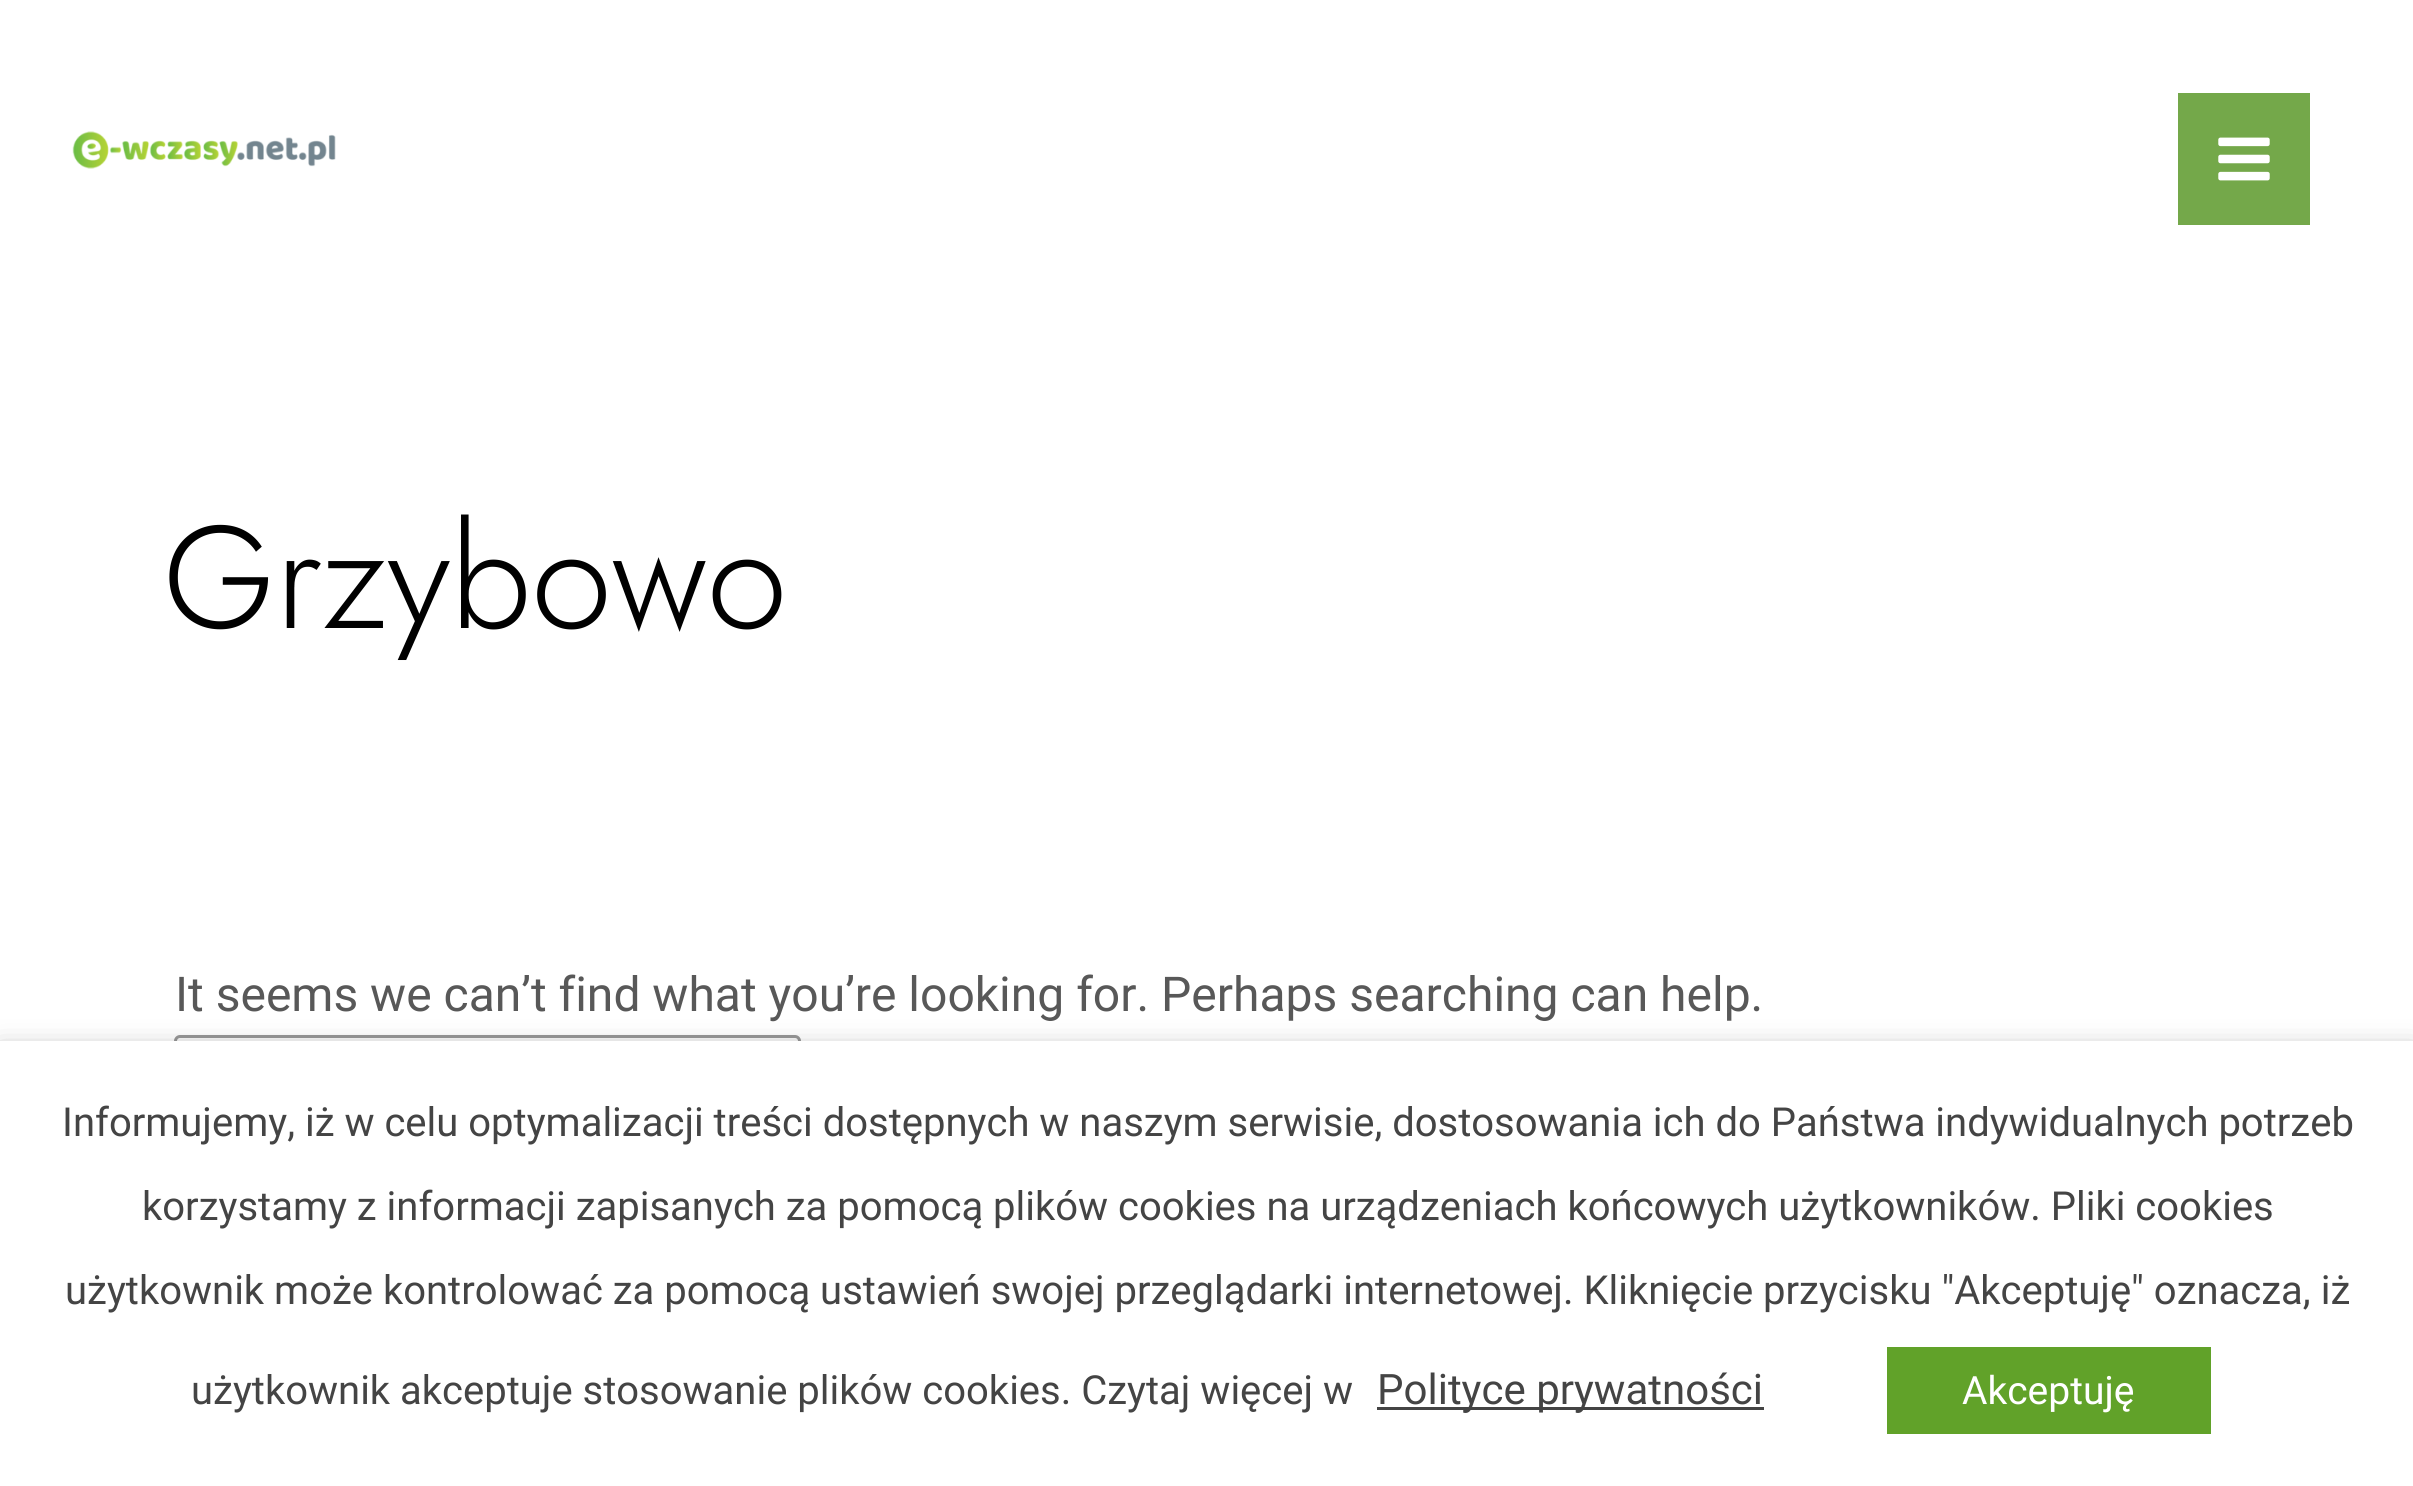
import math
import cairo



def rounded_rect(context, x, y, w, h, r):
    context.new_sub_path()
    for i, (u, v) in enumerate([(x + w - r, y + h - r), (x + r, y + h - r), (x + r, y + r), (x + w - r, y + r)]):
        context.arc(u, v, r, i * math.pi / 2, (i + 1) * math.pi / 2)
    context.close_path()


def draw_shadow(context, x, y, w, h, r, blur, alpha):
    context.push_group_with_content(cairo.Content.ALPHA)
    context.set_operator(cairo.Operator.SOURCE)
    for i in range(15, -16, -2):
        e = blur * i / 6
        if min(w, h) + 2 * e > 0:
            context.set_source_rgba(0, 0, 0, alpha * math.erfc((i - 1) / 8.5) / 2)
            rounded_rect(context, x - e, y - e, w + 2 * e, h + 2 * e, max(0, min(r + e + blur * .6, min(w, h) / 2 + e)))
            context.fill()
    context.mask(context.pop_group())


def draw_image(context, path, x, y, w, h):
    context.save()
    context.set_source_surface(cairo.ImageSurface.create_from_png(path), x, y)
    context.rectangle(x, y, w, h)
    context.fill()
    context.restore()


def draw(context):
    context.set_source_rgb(1, 1, 1)
    context.paint()
    draw_image(context, "images/1.png", 72, 131, 264, 38)
    context.set_source_rgb(116 / 255, 168 / 255, 74 / 255)
    context.rectangle(2178, 93, 132, 132)
    context.fill()
    draw_image(context, "images/2.png", 2218, 137, 52, 44)
    context.set_source_rgb(250 / 255, 250 / 255, 250 / 255)
    rounded_rect(context, 175.5, 1036.5, 624, 156, 4.5)
    context.fill_preserve()
    context.set_source_rgb(152 / 255, 152 / 255, 152 / 255)
    context.set_line_width(3)
    context.stroke()
    context.set_source_rgb(0, 0, 0)
    draw_shadow(context, 0, 1056, 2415, 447, 0, 15, 0.5)
    context.set_source_rgb(1, 1, 1)
    context.rectangle(0, 1041, 2413, 445)
    context.fill()
    context.set_source_rgb(68 / 255, 68 / 255, 68 / 255)
    context.rectangle(1377, 1407, 387, 3)
    context.fill()
    context.set_source_rgb(97 / 255, 162 / 255, 41 / 255)
    context.rectangle(1887, 1347, 324, 87)
    context.fill()
    context.select_font_face("Jost Light")
    context.set_font_size(145.5)
    context.set_source_rgb(0, 0, 0)
    context.move_to(163, 628)
    context.show_text("Grzybowo")
    context.select_font_face("Roboto")
    context.set_font_size(48)
    context.set_source_rgb(88 / 255, 88 / 255, 88 / 255)
    context.move_to(175, 1011)
    context.show_text("It seems we can’t find what you’re looking for. Perhaps searching can help.")
    context.set_font_size(40)
    context.set_source_rgb(68 / 255, 68 / 255, 68 / 255)
    context.move_to(62, 1136)
    context.show_text("Informujemy, iż w celu optymalizacji treści dostępnych w naszym serwisie, dostosowania ich do Państwa indywidualnych potrzeb")
    context.move_to(142, 1220)
    context.show_text("korzystamy z informacji zapisanych za pomocą plików cookies na urządzeniach końcowych użytkowników. Pliki cookies")
    context.move_to(65, 1304)
    context.show_text("użytkownik może kontrolować za pomocą ustawień swojej przeglądarki internetowej. Kliknięcie przycisku \"Akceptuję\" oznacza, iż")
    context.move_to(191, 1404)
    context.show_text("użytkownik akceptuje stosowanie plików cookies. Czytaj więcej w")
    context.set_font_size(42)
    context.move_to(1377, 1404)
    context.show_text("Polityce prywatności")
    context.set_font_size(39)
    context.set_source_rgb(1, 1, 1)
    context.move_to(1962, 1404)
    context.show_text("Akceptuję")


surface = cairo.ImageSurface(cairo.Format.RGB24, 2413, 1486)
context = cairo.Context(surface)
options = cairo.FontOptions()
options.set_hint_metrics(cairo.HintMetrics.OFF)
options.set_hint_style(cairo.HintStyle.NONE)
context.set_font_options(options)
context.set_miter_limit(4)
draw(context)
surface.write_to_png("out.png")
